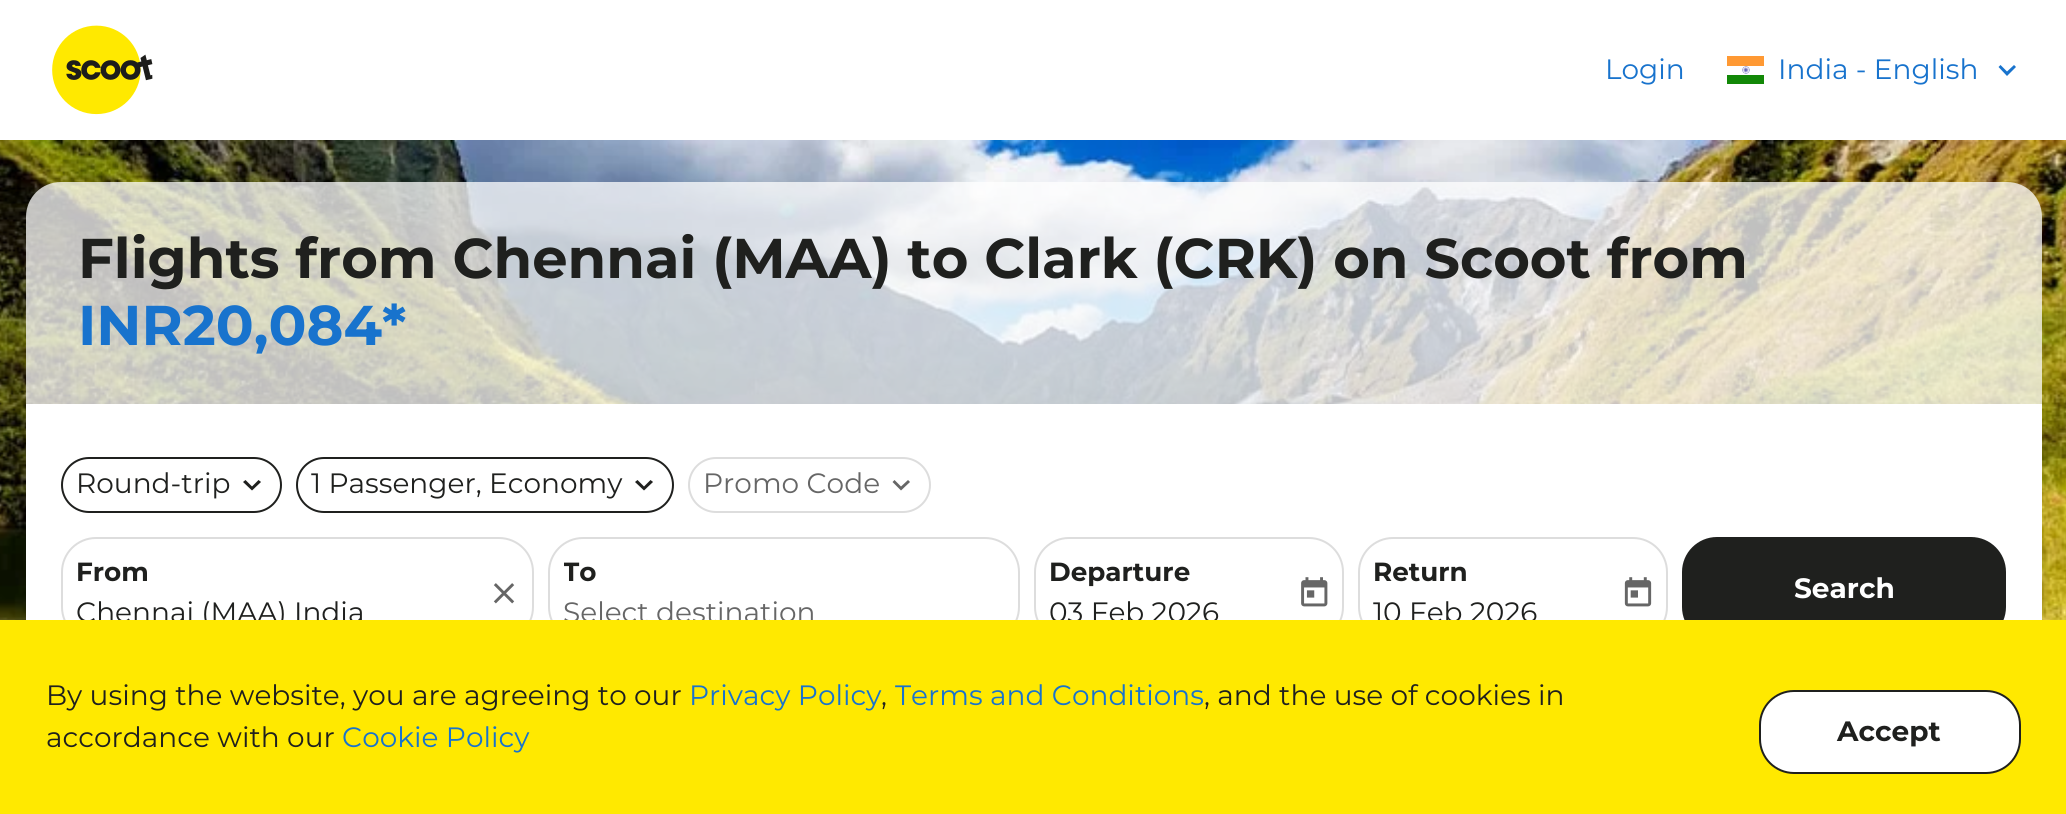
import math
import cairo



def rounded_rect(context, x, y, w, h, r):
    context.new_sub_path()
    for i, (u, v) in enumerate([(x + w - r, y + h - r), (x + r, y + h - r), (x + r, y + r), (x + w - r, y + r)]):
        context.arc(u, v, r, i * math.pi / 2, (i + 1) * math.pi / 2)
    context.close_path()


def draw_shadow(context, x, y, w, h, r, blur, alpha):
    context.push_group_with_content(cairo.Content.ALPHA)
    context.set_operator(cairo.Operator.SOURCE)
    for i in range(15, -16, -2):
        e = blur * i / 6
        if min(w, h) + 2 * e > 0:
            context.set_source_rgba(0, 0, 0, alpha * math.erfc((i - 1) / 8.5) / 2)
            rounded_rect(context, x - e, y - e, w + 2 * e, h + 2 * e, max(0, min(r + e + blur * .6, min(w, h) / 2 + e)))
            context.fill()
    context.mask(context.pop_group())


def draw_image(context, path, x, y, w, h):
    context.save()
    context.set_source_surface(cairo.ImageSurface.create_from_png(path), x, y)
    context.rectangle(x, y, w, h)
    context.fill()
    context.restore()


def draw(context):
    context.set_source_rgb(1, 1, 1)
    context.paint()
    draw_image(context, "images/1.png", 52, 25, 101, 90)
    draw_image(context, "images/2.png", 1727, 56, 37, 28)
    context.set_source_rgb(24 / 255, 115 / 255, 205 / 255)
    context.new_path()
    context.move_to(2000.5, 65)
    context.line_to(2007, 71.5)
    context.line_to(2014, 65)
    context.line_to(2016, 67)
    context.line_to(2007, 76)
    context.line_to(1998.5, 67)
    context.close_path()
    context.fill()
    draw_image(context, "images/3.png", 0, 140, 2066, 480)
    context.set_source_rgb(0, 0, 0)
    draw_shadow(context, 26, 406, 2016, 291, 35, 3.5, 0.15)
    context.set_source_rgba(1, 1, 1, 0.75)
    context.new_path()
    context.move_to(61, 182)
    context.line_to(2007, 182)
    context.curve_to(2026.5, 182, 2042, 197.5, 2042, 217)
    context.line_to(2042, 404)
    context.line_to(26, 404)
    context.line_to(26, 217)
    context.curve_to(26, 197.5, 41.5, 182, 61, 182)
    context.close_path()
    context.fill()
    context.set_source_rgb(1, 1, 1)
    context.rectangle(26, 404, 2016, 216)
    context.fill()
    rounded_rect(context, 62, 458, 219, 54, 27)
    context.set_source_rgb(31 / 255, 32 / 255, 30 / 255)
    context.stroke()
    context.new_path()
    context.move_to(258.5, 480)
    context.line_to(261, 482)
    context.line_to(252, 490.5)
    context.line_to(243, 482)
    context.line_to(245.5, 480)
    context.line_to(252, 486.5)
    context.close_path()
    context.fill()
    rounded_rect(context, 297, 458, 376, 54, 27)
    context.stroke()
    context.new_path()
    context.move_to(650.5, 480)
    context.line_to(653, 482)
    context.line_to(644, 490.5)
    context.line_to(635, 482)
    context.line_to(637.5, 480)
    context.line_to(644, 486.5)
    context.close_path()
    context.fill()
    rounded_rect(context, 689, 458, 241, 54, 27)
    context.set_source_rgb(221 / 255, 221 / 255, 221 / 255)
    context.stroke()
    context.set_source_rgb(102 / 255, 102 / 255, 102 / 255)
    context.new_path()
    context.move_to(908, 480)
    context.line_to(910, 482)
    context.line_to(901, 490.5)
    context.line_to(892.5, 482)
    context.line_to(894.5, 480)
    context.line_to(901, 486.5)
    context.close_path()
    context.fill()
    rounded_rect(context, 62, 538, 471, 103, 34)
    context.set_source_rgb(221 / 255, 221 / 255, 221 / 255)
    context.stroke()
    draw_image(context, "images/4.png", 493, 583, 22, 21)
    rounded_rect(context, 549, 538, 470, 103, 34)
    context.stroke()
    rounded_rect(context, 1035, 538, 308, 103, 34)
    context.stroke()
    draw_image(context, "images/5.png", 1301, 577, 27, 30)
    rounded_rect(context, 1359, 538, 308, 103, 34)
    context.stroke()
    draw_image(context, "images/6.png", 1624, 577, 28, 30)
    context.set_source_rgb(31 / 255, 32 / 255, 30 / 255)
    rounded_rect(context, 1683, 538, 322, 103, 34)
    context.fill_preserve()
    context.stroke()
    context.select_font_face("Montserrat")
    context.set_font_size(28)
    context.set_source_rgb(24 / 255, 115 / 255, 205 / 255)
    context.move_to(1605, 79)
    context.show_text("Login")
    context.move_to(1778, 79)
    context.show_text("India - English")
    context.select_font_face("Montserrat", cairo.FontSlant.NORMAL, cairo.FontWeight.BOLD)
    context.set_font_size(56)
    context.set_source_rgb(31 / 255, 32 / 255, 30 / 255)
    context.move_to(78, 278)
    context.show_text("Flights from Chennai (MAA) to Clark (CRK) on Scoot from")
    context.set_source_rgb(24 / 255, 115 / 255, 205 / 255)
    context.move_to(78, 345)
    context.show_text("INR20,084*")
    context.select_font_face("Montserrat")
    context.set_font_size(28)
    context.set_source_rgb(31 / 255, 32 / 255, 30 / 255)
    context.move_to(76, 493)
    context.show_text("Round-trip")
    context.move_to(311, 493)
    context.show_text("1 Passenger, Economy")
    context.set_source_rgb(102 / 255, 102 / 255, 102 / 255)
    context.move_to(703, 493)
    context.show_text("Promo Code")
    context.select_font_face("Montserrat", cairo.FontSlant.NORMAL, cairo.FontWeight.BOLD)
    context.set_font_size(26.25)
    context.set_source_rgb(31 / 255, 32 / 255, 30 / 255)
    context.move_to(76, 581)
    context.show_text("From")
    context.select_font_face("Montserrat")
    context.set_font_size(28)
    context.move_to(76, 622)
    context.show_text("Chennai (MAA) India")
    context.save()
    context.rectangle(564, 553, 441, 39)
    context.clip()
    context.select_font_face("Montserrat", cairo.FontSlant.NORMAL, cairo.FontWeight.BOLD)
    context.set_font_size(26.25)
    context.move_to(563, 581)
    context.show_text("To")
    context.restore()
    context.set_source_rgb(102 / 255, 102 / 255, 102 / 255)
    context.move_to(563, 622)
    context.show_text("Select destination")
    context.select_font_face("Montserrat", cairo.FontSlant.NORMAL, cairo.FontWeight.BOLD)
    context.set_font_size(26.25)
    context.set_source_rgb(31 / 255, 32 / 255, 30 / 255)
    context.move_to(1049, 581)
    context.show_text("Departure")
    context.select_font_face("Montserrat")
    context.set_font_size(28)
    context.move_to(1049, 622)
    context.show_text("03 Feb 2026")
    context.select_font_face("Montserrat", cairo.FontSlant.NORMAL, cairo.FontWeight.BOLD)
    context.set_font_size(26.25)
    context.move_to(1373, 581)
    context.show_text("Return")
    context.select_font_face("Montserrat")
    context.set_font_size(28)
    context.move_to(1373, 622)
    context.show_text("10 Feb 2026")
    context.select_font_face("Montserrat", cairo.FontSlant.NORMAL, cairo.FontWeight.BOLD)
    context.set_source_rgb(1, 1, 1)
    context.move_to(1794, 598)
    context.show_text("Search")
    context.set_source_rgb(1, 233 / 255, 0)
    context.rectangle(0, 620, 2066, 194)
    context.fill()
    context.select_font_face("Montserrat")
    context.set_source_rgb(31 / 255, 32 / 255, 30 / 255)
    context.move_to(46, 705)
    context.show_text("By using the website, you are agreeing to our")
    context.set_source_rgb(24 / 255, 115 / 255, 205 / 255)
    context.move_to(689, 705)
    context.show_text("Privacy Policy")
    context.set_source_rgb(31 / 255, 32 / 255, 30 / 255)
    context.move_to(881, 705)
    context.show_text(",")
    context.set_source_rgb(24 / 255, 115 / 255, 205 / 255)
    context.move_to(895, 705)
    context.show_text("Terms and Conditions")
    context.set_source_rgb(31 / 255, 32 / 255, 30 / 255)
    context.move_to(1204, 705)
    context.show_text(", and the use of cookies in")
    context.move_to(46, 747)
    context.show_text("accordance with our")
    context.set_source_rgb(24 / 255, 115 / 255, 205 / 255)
    context.move_to(342, 747)
    context.show_text("Cookie Policy")
    context.set_source_rgb(1, 1, 1)
    rounded_rect(context, 1760, 691, 260, 82, 34)
    context.fill_preserve()
    context.set_source_rgb(31 / 255, 32 / 255, 30 / 255)
    context.stroke()
    context.select_font_face("Montserrat", cairo.FontSlant.NORMAL, cairo.FontWeight.BOLD)
    context.move_to(1837, 741)
    context.show_text("Accept")


surface = cairo.ImageSurface(cairo.Format.RGB24, 2066, 814)
context = cairo.Context(surface)
options = cairo.FontOptions()
options.set_hint_metrics(cairo.HintMetrics.OFF)
options.set_hint_style(cairo.HintStyle.NONE)
context.set_font_options(options)
context.set_miter_limit(4)
draw(context)
surface.write_to_png("out.png")
